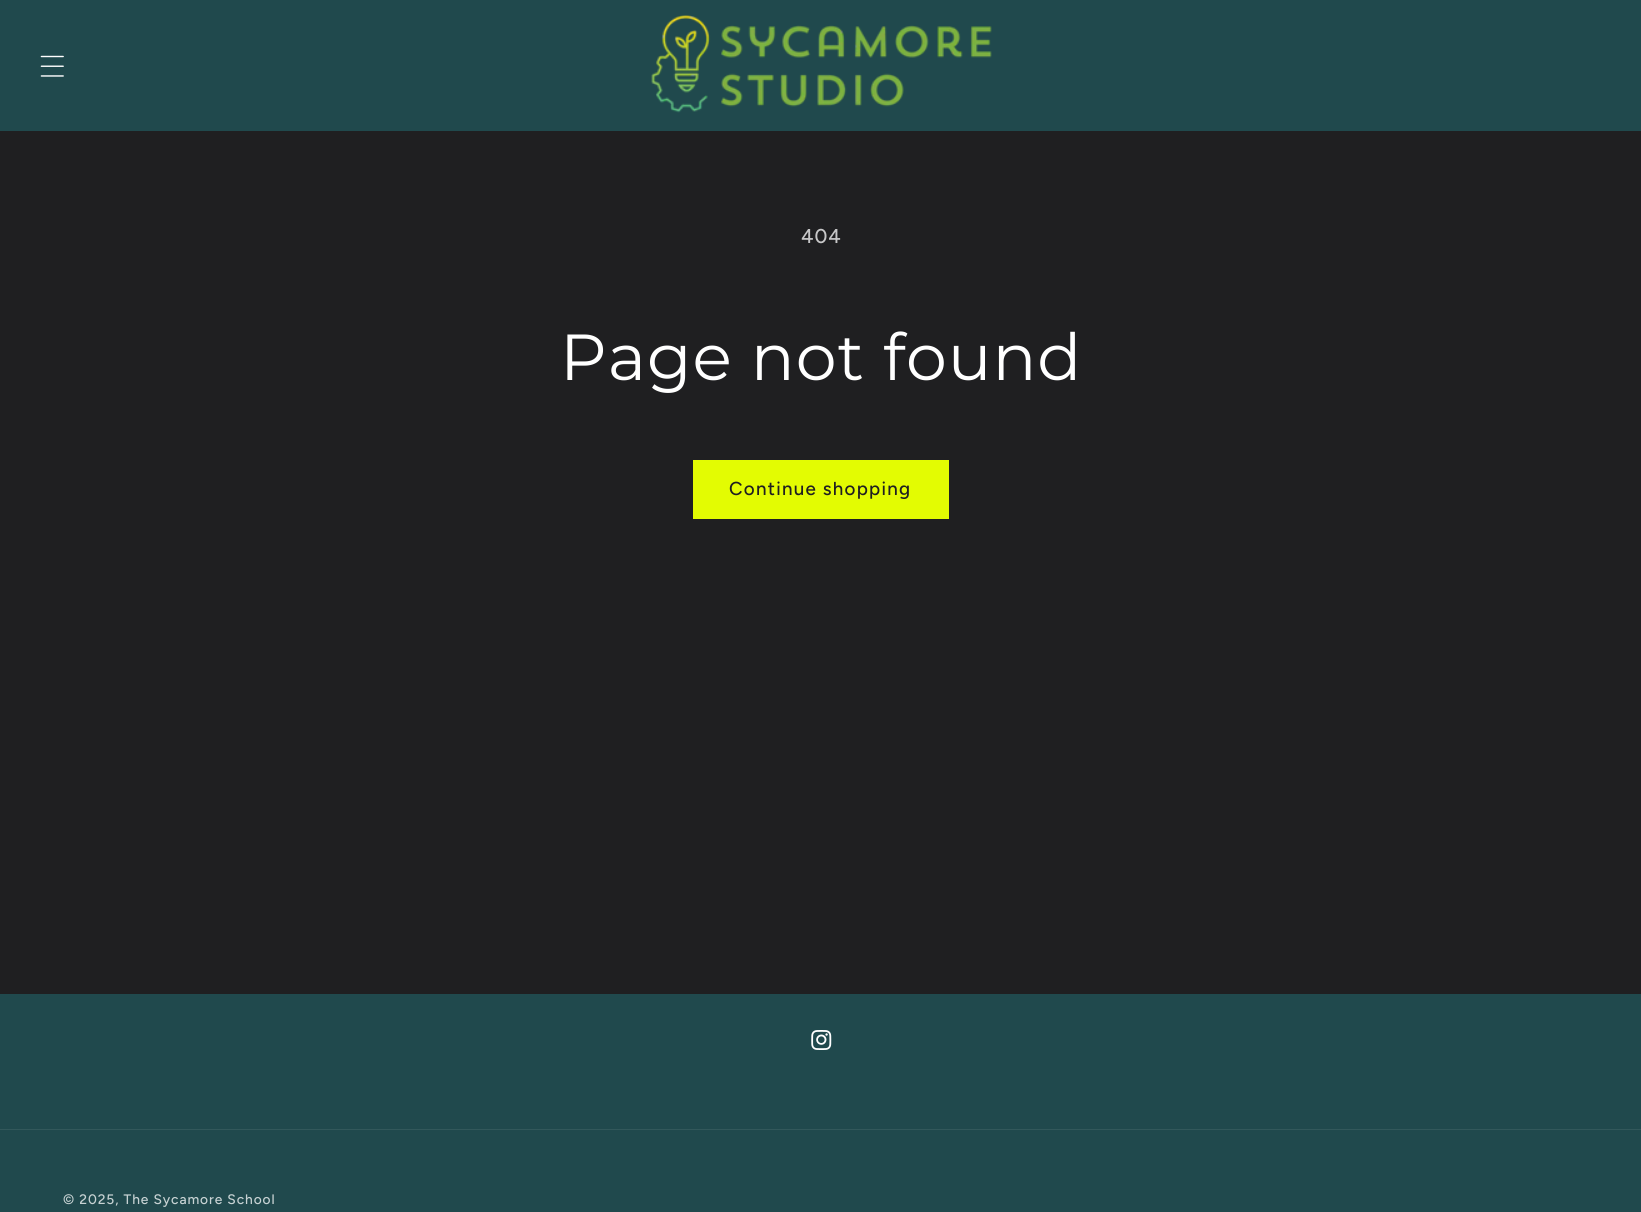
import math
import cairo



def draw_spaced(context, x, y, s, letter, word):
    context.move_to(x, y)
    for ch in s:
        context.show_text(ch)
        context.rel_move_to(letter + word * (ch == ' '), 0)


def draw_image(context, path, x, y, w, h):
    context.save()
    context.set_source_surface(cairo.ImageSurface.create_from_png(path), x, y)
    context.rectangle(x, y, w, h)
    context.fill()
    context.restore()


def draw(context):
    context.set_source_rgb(31 / 255, 31 / 255, 33 / 255)
    context.paint()
    context.set_source_rgb(32 / 255, 73 / 255, 77 / 255)
    context.rectangle(0, 0, 1641, 131)
    context.fill()
    draw_image(context, "images/1.png", 40, 55, 24, 22)
    draw_image(context, "images/2.png", 651, 15, 341, 98)
    context.set_source_rgb(227 / 255, 252 / 255, 2 / 255)
    context.rectangle(693, 460, 256, 59)
    context.fill()
    context.set_source_rgb(32 / 255, 73 / 255, 77 / 255)
    context.rectangle(0, 994, 1641, 218)
    context.fill()
    draw_image(context, "images/3.png", 811, 1030, 21, 20)
    context.set_source_rgb(50 / 255, 88 / 255, 91 / 255)
    context.rectangle(0, 1129, 1641, 1)
    context.fill()
    context.select_font_face("Figtree Medium")
    context.set_font_size(20)
    context.set_source_rgb(199 / 255, 199 / 255, 200 / 255)
    draw_spaced(context, 801, 243, "404", 1, 0)
    context.select_font_face("Montserrat")
    context.set_font_size(65)
    context.set_source_rgb(1, 1, 1)
    draw_spaced(context, 560, 380, "Page not found", 1, 0)
    context.select_font_face("Figtree Medium")
    context.set_font_size(18.75)
    context.set_source_rgb(31 / 255, 31 / 255, 33 / 255)
    draw_spaced(context, 729, 495, "Continue shopping", 1.25, 0)
    context.set_font_size(13.75)
    context.set_source_rgb(199 / 255, 210 / 255, 211 / 255)
    draw_spaced(context, 63, 1204, "© 2025, The Sycamore School", 0.9, 0)


surface = cairo.ImageSurface(cairo.Format.RGB24, 1641, 1212)
context = cairo.Context(surface)
options = cairo.FontOptions()
options.set_hint_metrics(cairo.HintMetrics.OFF)
options.set_hint_style(cairo.HintStyle.NONE)
context.set_font_options(options)
context.set_miter_limit(4)
draw(context)
surface.write_to_png("out.png")
